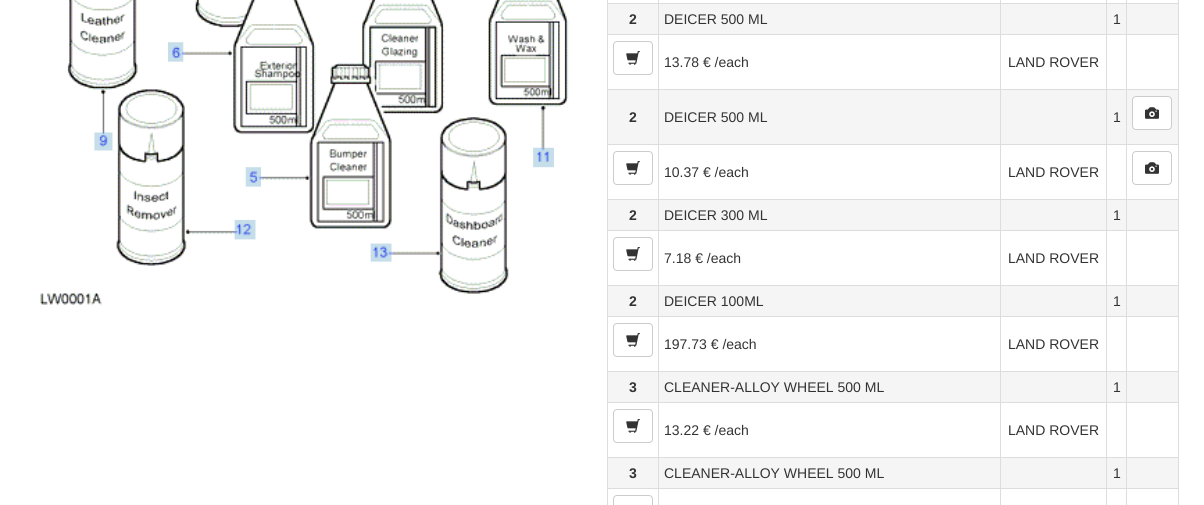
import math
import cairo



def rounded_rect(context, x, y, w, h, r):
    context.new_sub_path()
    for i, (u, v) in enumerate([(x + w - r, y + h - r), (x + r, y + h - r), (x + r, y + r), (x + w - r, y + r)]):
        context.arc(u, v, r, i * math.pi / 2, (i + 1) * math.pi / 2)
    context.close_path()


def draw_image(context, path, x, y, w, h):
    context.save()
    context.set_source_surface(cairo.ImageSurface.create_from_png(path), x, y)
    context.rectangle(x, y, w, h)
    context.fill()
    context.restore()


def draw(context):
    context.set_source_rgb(1, 1, 1)
    context.paint()
    draw_image(context, "images/1.png", 40, 0, 530, 306)
    context.set_source_rgb(221 / 255, 221 / 255, 221 / 255)
    context.rectangle(1178, 0, 1, 505)
    context.fill()
    context.rectangle(607, 0, 1, 505)
    context.fill()
    context.rectangle(1126, 3, 53, 1)
    context.fill()
    context.rectangle(1126, 34, 53, 1)
    context.fill()
    context.rectangle(1126, 89, 53, 1)
    context.fill()
    context.rectangle(1126, 144, 53, 1)
    context.fill()
    context.rectangle(1126, 199, 53, 1)
    context.fill()
    context.rectangle(1126, 230, 53, 1)
    context.fill()
    context.rectangle(1126, 285, 53, 1)
    context.fill()
    context.rectangle(1126, 316, 53, 1)
    context.fill()
    context.rectangle(1126, 371, 53, 1)
    context.fill()
    context.rectangle(1126, 402, 53, 1)
    context.fill()
    context.rectangle(1126, 457, 53, 1)
    context.fill()
    context.rectangle(1126, 488, 53, 1)
    context.fill()
    context.rectangle(1126, 488, 1, 17)
    context.fill()
    context.rectangle(1106, 488, 21, 1)
    context.fill()
    context.rectangle(1126, 457, 1, 32)
    context.fill()
    context.rectangle(1106, 457, 21, 1)
    context.fill()
    context.rectangle(1126, 402, 1, 56)
    context.fill()
    context.rectangle(1106, 402, 21, 1)
    context.fill()
    context.rectangle(1126, 371, 1, 32)
    context.fill()
    context.rectangle(1106, 371, 21, 1)
    context.fill()
    context.rectangle(1126, 316, 1, 56)
    context.fill()
    context.rectangle(1106, 316, 21, 1)
    context.fill()
    context.rectangle(1126, 285, 1, 32)
    context.fill()
    context.rectangle(1106, 285, 21, 1)
    context.fill()
    context.rectangle(1126, 230, 1, 56)
    context.fill()
    context.rectangle(1106, 230, 21, 1)
    context.fill()
    context.rectangle(1126, 199, 1, 32)
    context.fill()
    context.rectangle(1106, 199, 21, 1)
    context.fill()
    context.rectangle(1126, 144, 1, 56)
    context.fill()
    context.rectangle(1106, 144, 21, 1)
    context.fill()
    context.rectangle(1126, 89, 1, 56)
    context.fill()
    context.rectangle(1106, 89, 21, 1)
    context.fill()
    context.rectangle(1126, 34, 1, 56)
    context.fill()
    context.rectangle(1106, 34, 21, 1)
    context.fill()
    context.rectangle(1126, 3, 1, 32)
    context.fill()
    context.rectangle(1106, 3, 21, 1)
    context.fill()
    context.rectangle(1106, 488, 1, 17)
    context.fill()
    context.rectangle(1000, 488, 107, 1)
    context.fill()
    context.rectangle(1106, 457, 1, 32)
    context.fill()
    context.rectangle(1000, 457, 107, 1)
    context.fill()
    context.rectangle(1106, 402, 1, 56)
    context.fill()
    context.rectangle(1000, 402, 107, 1)
    context.fill()
    context.rectangle(1106, 371, 1, 32)
    context.fill()
    context.rectangle(1000, 371, 107, 1)
    context.fill()
    context.rectangle(1106, 316, 1, 56)
    context.fill()
    context.rectangle(1000, 316, 107, 1)
    context.fill()
    context.rectangle(1106, 285, 1, 32)
    context.fill()
    context.rectangle(1000, 285, 107, 1)
    context.fill()
    context.rectangle(1106, 230, 1, 56)
    context.fill()
    context.rectangle(1000, 230, 107, 1)
    context.fill()
    context.rectangle(1106, 199, 1, 32)
    context.fill()
    context.rectangle(1000, 199, 107, 1)
    context.fill()
    context.rectangle(1106, 144, 1, 56)
    context.fill()
    context.rectangle(1000, 144, 107, 1)
    context.fill()
    context.rectangle(1106, 89, 1, 56)
    context.fill()
    context.rectangle(1000, 89, 107, 1)
    context.fill()
    context.rectangle(1106, 34, 1, 56)
    context.fill()
    context.rectangle(1000, 34, 107, 1)
    context.fill()
    context.rectangle(1106, 3, 1, 32)
    context.fill()
    context.rectangle(1000, 3, 107, 1)
    context.fill()
    context.rectangle(1000, 488, 1, 17)
    context.fill()
    context.rectangle(658, 488, 343, 1)
    context.fill()
    context.rectangle(1000, 457, 1, 32)
    context.fill()
    context.rectangle(658, 457, 343, 1)
    context.fill()
    context.rectangle(1000, 402, 1, 56)
    context.fill()
    context.rectangle(658, 402, 343, 1)
    context.fill()
    context.rectangle(1000, 371, 1, 32)
    context.fill()
    context.rectangle(658, 371, 343, 1)
    context.fill()
    context.rectangle(1000, 316, 1, 56)
    context.fill()
    context.rectangle(658, 316, 343, 1)
    context.fill()
    context.rectangle(1000, 285, 1, 32)
    context.fill()
    context.rectangle(658, 285, 343, 1)
    context.fill()
    context.rectangle(1000, 230, 1, 56)
    context.fill()
    context.rectangle(658, 230, 343, 1)
    context.fill()
    context.rectangle(1000, 199, 1, 32)
    context.fill()
    context.rectangle(658, 199, 343, 1)
    context.fill()
    context.rectangle(1000, 144, 1, 56)
    context.fill()
    context.rectangle(658, 144, 343, 1)
    context.fill()
    context.rectangle(1000, 89, 1, 56)
    context.fill()
    context.rectangle(658, 89, 343, 1)
    context.fill()
    context.rectangle(1000, 34, 1, 56)
    context.fill()
    context.rectangle(658, 34, 343, 1)
    context.fill()
    context.rectangle(1000, 3, 1, 32)
    context.fill()
    context.rectangle(658, 3, 343, 1)
    context.fill()
    context.rectangle(658, 488, 1, 17)
    context.fill()
    context.rectangle(607, 488, 52, 1)
    context.fill()
    context.rectangle(658, 457, 1, 32)
    context.fill()
    context.rectangle(607, 457, 52, 1)
    context.fill()
    context.rectangle(658, 402, 1, 56)
    context.fill()
    context.rectangle(607, 402, 52, 1)
    context.fill()
    context.rectangle(658, 371, 1, 32)
    context.fill()
    context.rectangle(607, 371, 52, 1)
    context.fill()
    context.rectangle(658, 316, 1, 56)
    context.fill()
    context.rectangle(607, 316, 52, 1)
    context.fill()
    context.rectangle(658, 285, 1, 32)
    context.fill()
    context.rectangle(607, 285, 52, 1)
    context.fill()
    context.rectangle(658, 230, 1, 56)
    context.fill()
    context.rectangle(607, 230, 52, 1)
    context.fill()
    context.rectangle(658, 199, 1, 32)
    context.fill()
    context.rectangle(607, 199, 52, 1)
    context.fill()
    context.rectangle(658, 144, 1, 56)
    context.fill()
    context.rectangle(607, 144, 52, 1)
    context.fill()
    context.rectangle(658, 89, 1, 56)
    context.fill()
    context.rectangle(607, 89, 52, 1)
    context.fill()
    context.rectangle(658, 34, 1, 56)
    context.fill()
    context.rectangle(607, 34, 52, 1)
    context.fill()
    context.rectangle(658, 3, 1, 32)
    context.fill()
    context.rectangle(607, 3, 52, 1)
    context.fill()
    context.rectangle(658, 0, 1, 4)
    context.fill()
    context.rectangle(1000, 0, 1, 4)
    context.fill()
    context.rectangle(1106, 0, 1, 4)
    context.fill()
    context.rectangle(1126, 0, 1, 4)
    context.fill()
    context.set_source_rgb(245 / 255, 245 / 255, 245 / 255)
    context.rectangle(608, 4, 50, 30)
    context.fill()
    context.rectangle(659, 4, 341, 30)
    context.fill()
    context.rectangle(1001, 4, 105, 30)
    context.fill()
    context.rectangle(1107, 4, 19, 30)
    context.fill()
    context.rectangle(1127, 4, 51, 30)
    context.fill()
    rounded_rect(context, 613.5, 41.5, 39, 33, 3.5)
    context.set_source_rgb(204 / 255, 204 / 255, 204 / 255)
    context.set_line_width(1)
    context.stroke()
    draw_image(context, "images/2.png", 626, 51, 14, 14)
    context.set_source_rgb(245 / 255, 245 / 255, 245 / 255)
    context.rectangle(608, 90, 50, 54)
    context.fill()
    context.rectangle(659, 90, 341, 54)
    context.fill()
    context.rectangle(1001, 90, 105, 54)
    context.fill()
    context.rectangle(1107, 90, 19, 54)
    context.fill()
    context.rectangle(1127, 90, 51, 54)
    context.fill()
    context.set_source_rgb(1, 1, 1)
    rounded_rect(context, 1132.5, 96.5, 39, 33, 3.5)
    context.fill_preserve()
    context.set_source_rgb(204 / 255, 204 / 255, 204 / 255)
    context.stroke()
    draw_image(context, "images/3.png", 1145, 107, 14, 12)
    rounded_rect(context, 613.5, 151.5, 39, 33, 3.5)
    context.stroke()
    draw_image(context, "images/2.png", 626, 161, 14, 14)
    rounded_rect(context, 1132.5, 151.5, 39, 33, 3.5)
    context.stroke()
    draw_image(context, "images/3.png", 1145, 162, 14, 12)
    context.set_source_rgb(245 / 255, 245 / 255, 245 / 255)
    context.rectangle(608, 200, 50, 30)
    context.fill()
    context.rectangle(659, 200, 341, 30)
    context.fill()
    context.rectangle(1001, 200, 105, 30)
    context.fill()
    context.rectangle(1107, 200, 19, 30)
    context.fill()
    context.rectangle(1127, 200, 51, 30)
    context.fill()
    rounded_rect(context, 613.5, 237.5, 39, 33, 3.5)
    context.set_source_rgb(204 / 255, 204 / 255, 204 / 255)
    context.stroke()
    draw_image(context, "images/2.png", 626, 247, 14, 14)
    context.set_source_rgb(245 / 255, 245 / 255, 245 / 255)
    context.rectangle(608, 286, 50, 30)
    context.fill()
    context.rectangle(659, 286, 341, 30)
    context.fill()
    context.rectangle(1001, 286, 105, 30)
    context.fill()
    context.rectangle(1107, 286, 19, 30)
    context.fill()
    context.rectangle(1127, 286, 51, 30)
    context.fill()
    rounded_rect(context, 613.5, 323.5, 39, 33, 3.5)
    context.set_source_rgb(204 / 255, 204 / 255, 204 / 255)
    context.stroke()
    draw_image(context, "images/2.png", 626, 333, 14, 14)
    context.set_source_rgb(245 / 255, 245 / 255, 245 / 255)
    context.rectangle(608, 372, 50, 30)
    context.fill()
    context.rectangle(659, 372, 341, 30)
    context.fill()
    context.rectangle(1001, 372, 105, 30)
    context.fill()
    context.rectangle(1107, 372, 19, 30)
    context.fill()
    context.rectangle(1127, 372, 51, 30)
    context.fill()
    rounded_rect(context, 613.5, 409.5, 39, 33, 3.5)
    context.set_source_rgb(204 / 255, 204 / 255, 204 / 255)
    context.stroke()
    draw_image(context, "images/2.png", 626, 419, 14, 14)
    context.set_source_rgb(245 / 255, 245 / 255, 245 / 255)
    context.rectangle(608, 458, 50, 30)
    context.fill()
    context.rectangle(659, 458, 341, 30)
    context.fill()
    context.rectangle(1001, 458, 105, 30)
    context.fill()
    context.rectangle(1107, 458, 19, 30)
    context.fill()
    context.rectangle(1127, 458, 51, 30)
    context.fill()
    rounded_rect(context, 613.5, 495.5, 39, 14, 3.5)
    context.set_source_rgb(204 / 255, 204 / 255, 204 / 255)
    context.stroke()
    context.select_font_face("Liberation Sans", cairo.FontSlant.NORMAL, cairo.FontWeight.BOLD)
    context.set_font_size(14)
    context.set_source_rgb(51 / 255, 51 / 255, 51 / 255)
    context.move_to(629, 24)
    context.show_text("2")
    context.select_font_face("Liberation Sans")
    context.move_to(664, 24)
    context.show_text("DEICER 500 ML")
    context.move_to(1113, 24)
    context.show_text("1")
    context.move_to(664, 67)
    context.show_text("13.78 € /each")
    context.move_to(1008, 67)
    context.show_text("LAND ROVER")
    context.select_font_face("Liberation Sans", cairo.FontSlant.NORMAL, cairo.FontWeight.BOLD)
    context.move_to(629, 122)
    context.show_text("2")
    context.select_font_face("Liberation Sans")
    context.move_to(664, 122)
    context.show_text("DEICER 500 ML")
    context.move_to(1113, 122)
    context.show_text("1")
    context.move_to(664, 177)
    context.show_text("10.37 € /each")
    context.move_to(1008, 177)
    context.show_text("LAND ROVER")
    context.select_font_face("Liberation Sans", cairo.FontSlant.NORMAL, cairo.FontWeight.BOLD)
    context.move_to(629, 220)
    context.show_text("2")
    context.select_font_face("Liberation Sans")
    context.move_to(664, 220)
    context.show_text("DEICER 300 ML")
    context.move_to(1113, 220)
    context.show_text("1")
    context.move_to(664, 263)
    context.show_text("7.18 € /each")
    context.move_to(1008, 263)
    context.show_text("LAND ROVER")
    context.select_font_face("Liberation Sans", cairo.FontSlant.NORMAL, cairo.FontWeight.BOLD)
    context.move_to(629, 306)
    context.show_text("2")
    context.select_font_face("Liberation Sans")
    context.move_to(664, 306)
    context.show_text("DEICER 100ML")
    context.move_to(1113, 306)
    context.show_text("1")
    context.move_to(664, 349)
    context.show_text("197.73 € /each")
    context.move_to(1008, 349)
    context.show_text("LAND ROVER")
    context.select_font_face("Liberation Sans", cairo.FontSlant.NORMAL, cairo.FontWeight.BOLD)
    context.move_to(629, 392)
    context.show_text("3")
    context.select_font_face("Liberation Sans")
    context.move_to(664, 392)
    context.show_text("CLEANER-ALLOY WHEEL 500 ML")
    context.move_to(1113, 392)
    context.show_text("1")
    context.move_to(664, 435)
    context.show_text("13.22 € /each")
    context.move_to(1008, 435)
    context.show_text("LAND ROVER")
    context.select_font_face("Liberation Sans", cairo.FontSlant.NORMAL, cairo.FontWeight.BOLD)
    context.move_to(629, 478)
    context.show_text("3")
    context.select_font_face("Liberation Sans")
    context.move_to(664, 478)
    context.show_text("CLEANER-ALLOY WHEEL 500 ML")
    context.move_to(1113, 478)
    context.show_text("1")


surface = cairo.ImageSurface(cairo.Format.RGB24, 1204, 505)
context = cairo.Context(surface)
options = cairo.FontOptions()
options.set_hint_metrics(cairo.HintMetrics.OFF)
options.set_hint_style(cairo.HintStyle.NONE)
context.set_font_options(options)
context.set_miter_limit(4)
draw(context)
surface.write_to_png("out.png")
